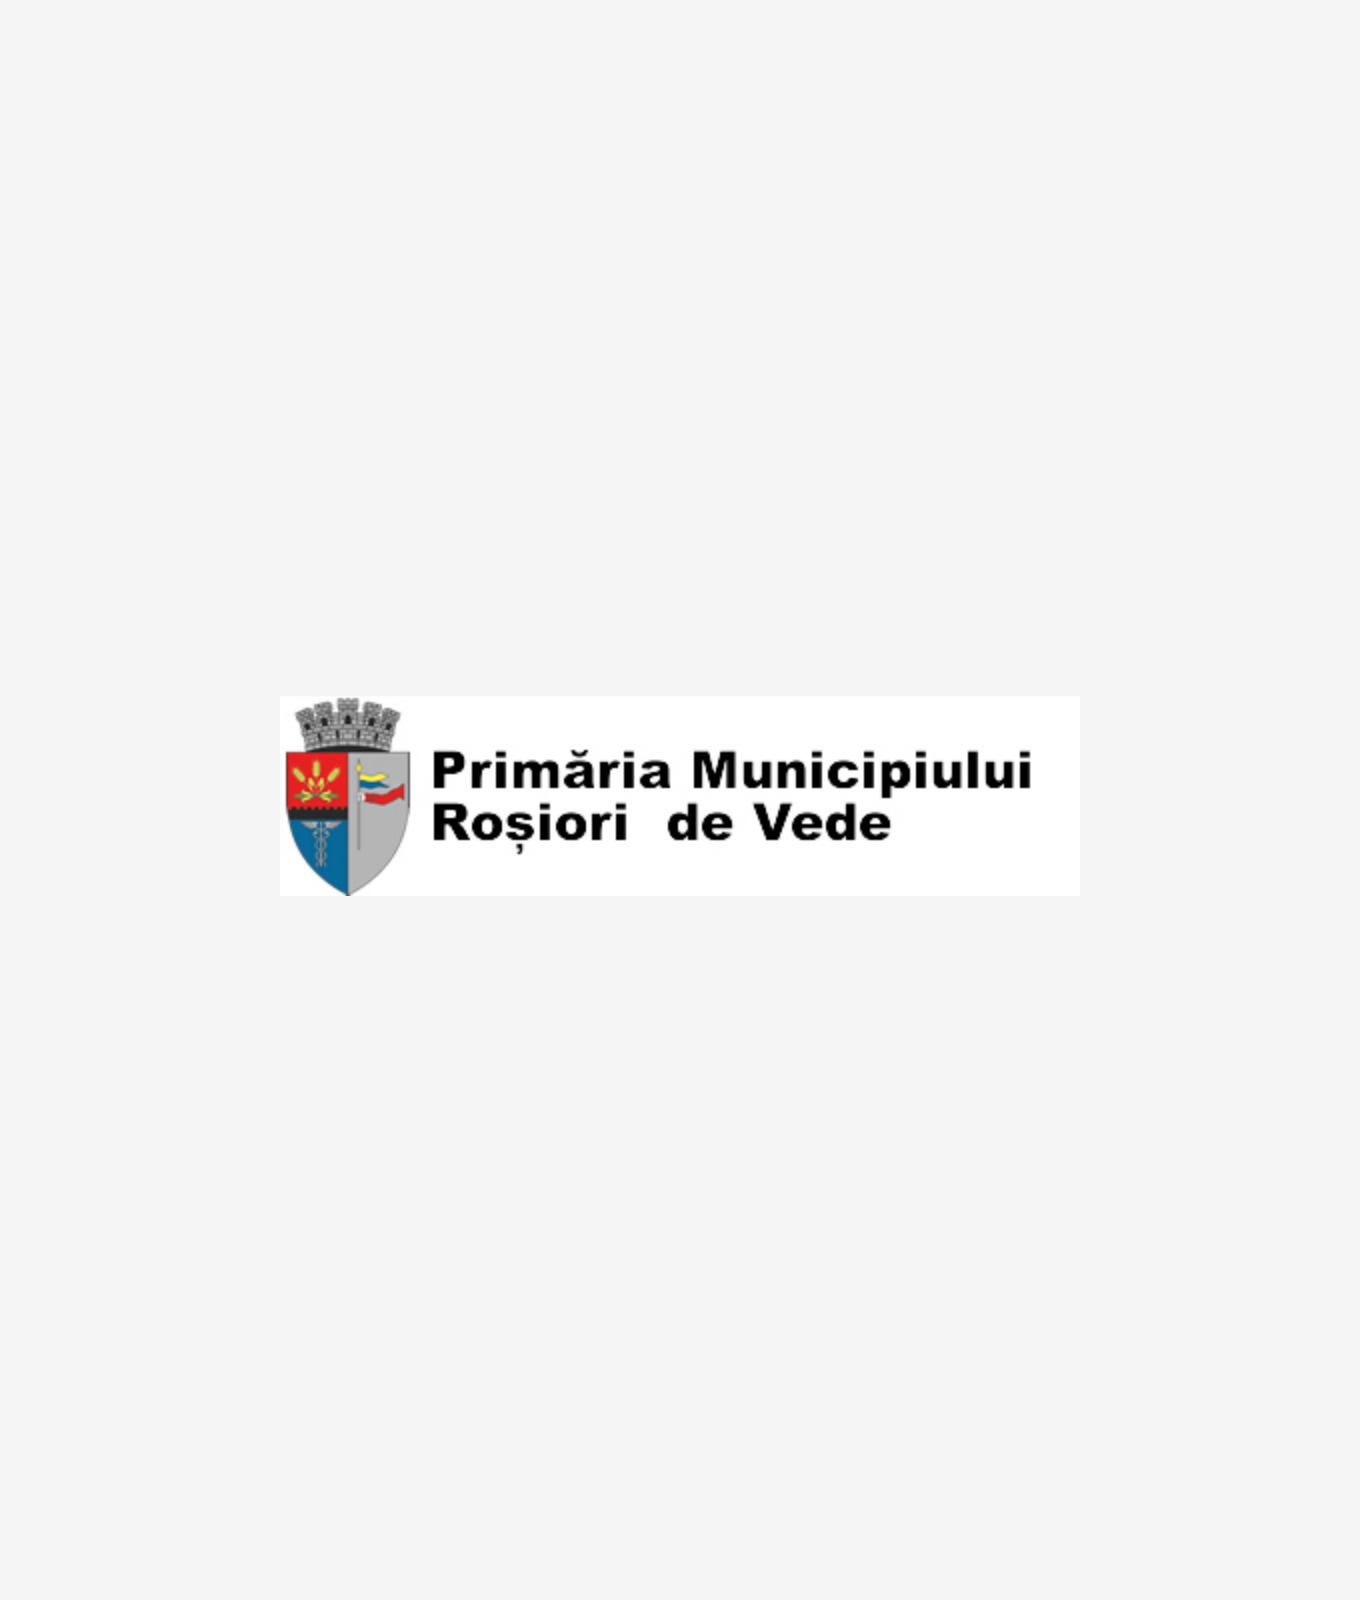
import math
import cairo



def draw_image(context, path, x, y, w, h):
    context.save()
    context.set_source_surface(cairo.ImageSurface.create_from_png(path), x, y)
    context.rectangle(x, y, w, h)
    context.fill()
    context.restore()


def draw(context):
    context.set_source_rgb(245 / 255, 245 / 255, 245 / 255)
    context.paint()
    draw_image(context, "images/1.png", 280, 696, 800, 200)


surface = cairo.ImageSurface(cairo.Format.RGB24, 1360, 1600)
context = cairo.Context(surface)
options = cairo.FontOptions()
options.set_hint_metrics(cairo.HintMetrics.OFF)
options.set_hint_style(cairo.HintStyle.NONE)
context.set_font_options(options)
context.set_miter_limit(4)
draw(context)
surface.write_to_png("out.png")
